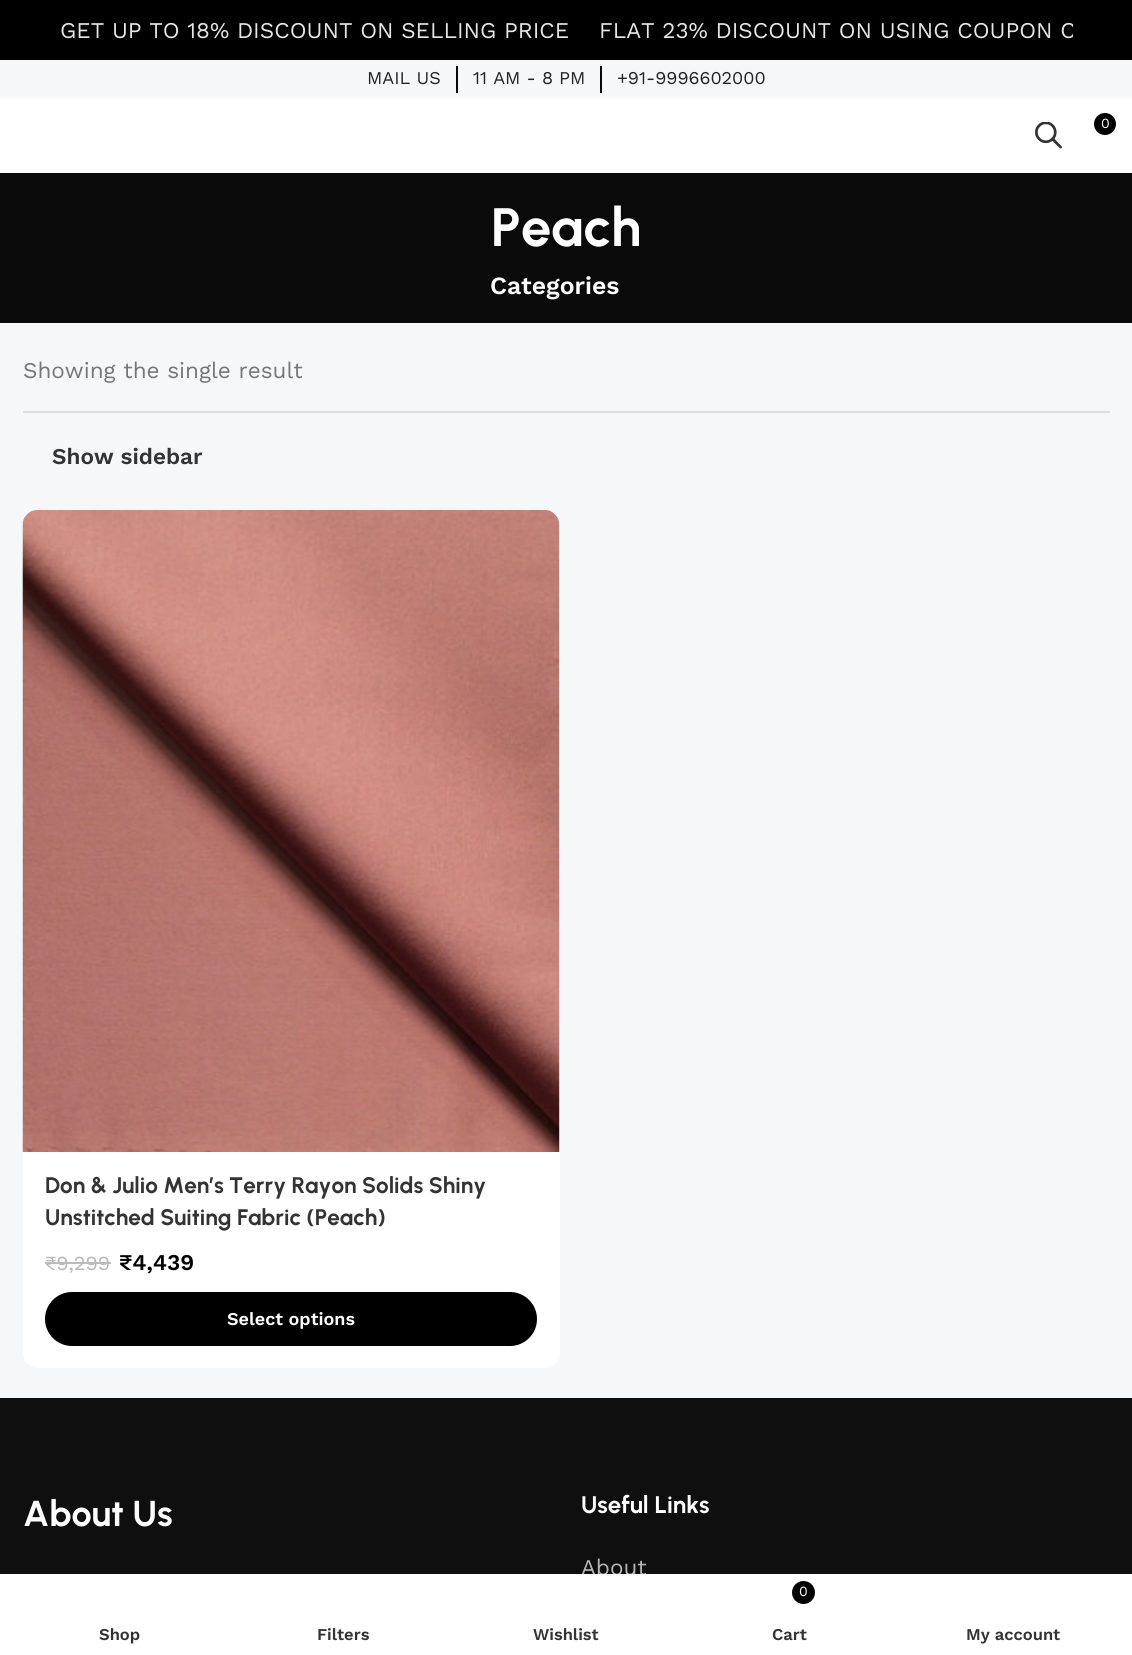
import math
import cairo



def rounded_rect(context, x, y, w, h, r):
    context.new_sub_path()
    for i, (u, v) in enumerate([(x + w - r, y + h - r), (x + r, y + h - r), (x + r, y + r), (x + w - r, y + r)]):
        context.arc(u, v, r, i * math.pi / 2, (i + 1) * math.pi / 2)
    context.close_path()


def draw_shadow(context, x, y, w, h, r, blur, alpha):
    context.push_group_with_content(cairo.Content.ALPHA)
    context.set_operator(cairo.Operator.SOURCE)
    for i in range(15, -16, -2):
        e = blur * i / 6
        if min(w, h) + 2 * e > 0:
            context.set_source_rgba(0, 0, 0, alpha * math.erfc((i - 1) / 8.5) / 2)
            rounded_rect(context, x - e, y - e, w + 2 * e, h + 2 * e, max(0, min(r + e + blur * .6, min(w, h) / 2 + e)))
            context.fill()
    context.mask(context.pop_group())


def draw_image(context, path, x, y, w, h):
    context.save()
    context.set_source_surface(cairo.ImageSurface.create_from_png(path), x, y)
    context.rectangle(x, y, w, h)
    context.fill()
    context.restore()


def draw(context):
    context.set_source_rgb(1, 1, 1)
    context.paint()
    context.set_source_rgb(0, 0, 0)
    context.rectangle(0, 0, 1132, 60)
    context.fill()
    context.set_source_rgb(245 / 255, 247 / 255, 248 / 255)
    context.rectangle(0, 60, 1132, 38)
    context.fill()
    context.set_source_rgb(7 / 255, 7 / 255, 7 / 255)
    context.rectangle(456, 66, 2, 27)
    context.fill()
    context.rectangle(600, 66, 2, 27)
    context.fill()
    draw_image(context, "images/1.png", 1035, 122, 27, 27)
    context.set_source_rgb(0, 0, 0)
    context.arc(1105, 124, 11, 0, 2 * math.pi)
    context.fill()
    context.set_source_rgb(245 / 255, 247 / 255, 248 / 255)
    context.rectangle(0, 323, 1132, 1075)
    context.fill()
    context.set_source_rgb(10 / 255, 10 / 255, 10 / 255)
    context.rectangle(0, 173, 1132, 150)
    context.fill()
    context.set_source_rgb(219 / 255, 221 / 255, 222 / 255)
    context.rectangle(23, 411, 1087, 2)
    context.fill()
    context.set_source_rgb(1, 1, 1)
    rounded_rect(context, 23, 510, 537, 858, 15)
    context.fill()
    draw_image(context, "images/2.png", 22, 510, 538, 642)
    context.set_source_rgb(0, 0, 0)
    rounded_rect(context, 45, 1292, 492, 54, 27)
    context.fill()
    context.set_source_rgb(15 / 255, 15 / 255, 15 / 255)
    context.rectangle(0, 1398, 1132, 176)
    context.fill()
    context.set_source_rgb(0, 0, 0)
    draw_shadow(context, 0, 1574, 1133, 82, 0, 7, 0.12)
    context.select_font_face("Work Sans")
    context.set_font_size(22.5)
    context.set_source_rgb(230 / 255, 230 / 255, 230 / 255)
    context.move_to(60, 38)
    context.show_text("GET UP TO 18% DISCOUNT ON SELLING PRICE")
    context.save()
    context.rectangle(60, 0, 1013, 48)
    context.clip()
    context.move_to(599, 38)
    context.show_text("FLAT 23% DISCOUNT ON USING COUPON C")
    context.restore()
    context.set_font_size(18)
    context.set_source_rgb(36 / 255, 36 / 255, 36 / 255)
    context.move_to(367, 84)
    context.show_text("MAIL US")
    context.move_to(473, 84)
    context.show_text("11 AM - 8 PM")
    context.move_to(617, 84)
    context.show_text("+91-9996602000")
    context.set_font_size(14)
    context.set_source_rgb(1, 1, 1)
    context.move_to(1101, 128)
    context.show_text("0")
    context.select_font_face("Urbanist", cairo.FontSlant.NORMAL, cairo.FontWeight.BOLD)
    context.set_font_size(54)
    context.move_to(491, 246)
    context.show_text("Peach")
    context.select_font_face("Work Sans SemiBold")
    context.set_font_size(24.75)
    context.move_to(490, 294)
    context.show_text("Categories")
    context.select_font_face("Work Sans")
    context.set_font_size(22.5)
    context.set_source_rgb(118 / 255, 118 / 255, 118 / 255)
    context.move_to(23, 378)
    context.show_text("Showing the single result")
    context.select_font_face("Work Sans SemiBold")
    context.set_source_rgb(51 / 255, 51 / 255, 51 / 255)
    context.move_to(52, 464)
    context.show_text("Show sidebar")
    context.select_font_face("Urbanist", cairo.FontSlant.NORMAL, cairo.FontWeight.BOLD)
    context.move_to(45, 1193)
    context.show_text("Don & Julio Men’s Terry Rayon Solids Shiny")
    context.move_to(45, 1225)
    context.show_text("Unstitched Suiting Fabric (Peach)")
    context.select_font_face("Work Sans")
    context.set_font_size(20)
    context.set_source_rgb(183 / 255, 183 / 255, 183 / 255)
    context.move_to(45, 1270)
    context.show_text("₹9,299")
    context.set_source_rgb(187 / 255, 187 / 255, 187 / 255)
    context.rectangle(45, 1262, 66, 2)
    context.fill()
    context.select_font_face("Work Sans SemiBold")
    context.set_font_size(22.5)
    context.set_source_rgb(0, 0, 0)
    context.move_to(119, 1270)
    context.show_text("₹4,439")
    context.set_font_size(18)
    context.set_source_rgb(1, 1, 1)
    context.move_to(227, 1325)
    context.show_text("Select options")
    context.select_font_face("Urbanist", cairo.FontSlant.NORMAL, cairo.FontWeight.BOLD)
    context.set_font_size(36)
    context.move_to(23, 1526)
    context.show_text("About Us")
    context.set_font_size(24)
    context.move_to(581, 1513)
    context.show_text("Useful Links")
    context.select_font_face("Work Sans")
    context.set_font_size(22.5)
    context.set_source_rgb(183 / 255, 183 / 255, 183 / 255)
    context.move_to(581, 1575)
    context.show_text("About")
    context.set_source_rgb(1, 1, 1)
    context.rectangle(0, 1574, 1132, 81)
    context.fill()
    context.select_font_face("Work Sans SemiBold")
    context.set_font_size(16.5)
    context.set_source_rgb(51 / 255, 51 / 255, 51 / 255)
    context.move_to(99, 1640)
    context.show_text("Shop")
    context.move_to(317, 1640)
    context.show_text("Filters")
    context.move_to(533, 1640)
    context.show_text("Wishlist")
    context.set_source_rgb(0, 0, 0)
    context.new_path()
    context.arc(803.5, 1592.5, 11.5, 0, 2 * math.pi)
    context.fill()
    context.select_font_face("Work Sans")
    context.set_font_size(14)
    context.set_source_rgb(1, 1, 1)
    context.move_to(799, 1596)
    context.show_text("0")
    context.select_font_face("Work Sans SemiBold")
    context.set_font_size(16.5)
    context.set_source_rgb(51 / 255, 51 / 255, 51 / 255)
    context.move_to(772, 1640)
    context.show_text("Cart")
    context.move_to(966, 1640)
    context.show_text("My account")


surface = cairo.ImageSurface(cairo.Format.RGB24, 1132, 1655)
context = cairo.Context(surface)
options = cairo.FontOptions()
options.set_hint_metrics(cairo.HintMetrics.OFF)
options.set_hint_style(cairo.HintStyle.NONE)
context.set_font_options(options)
context.set_miter_limit(4)
draw(context)
surface.write_to_png("out.png")
